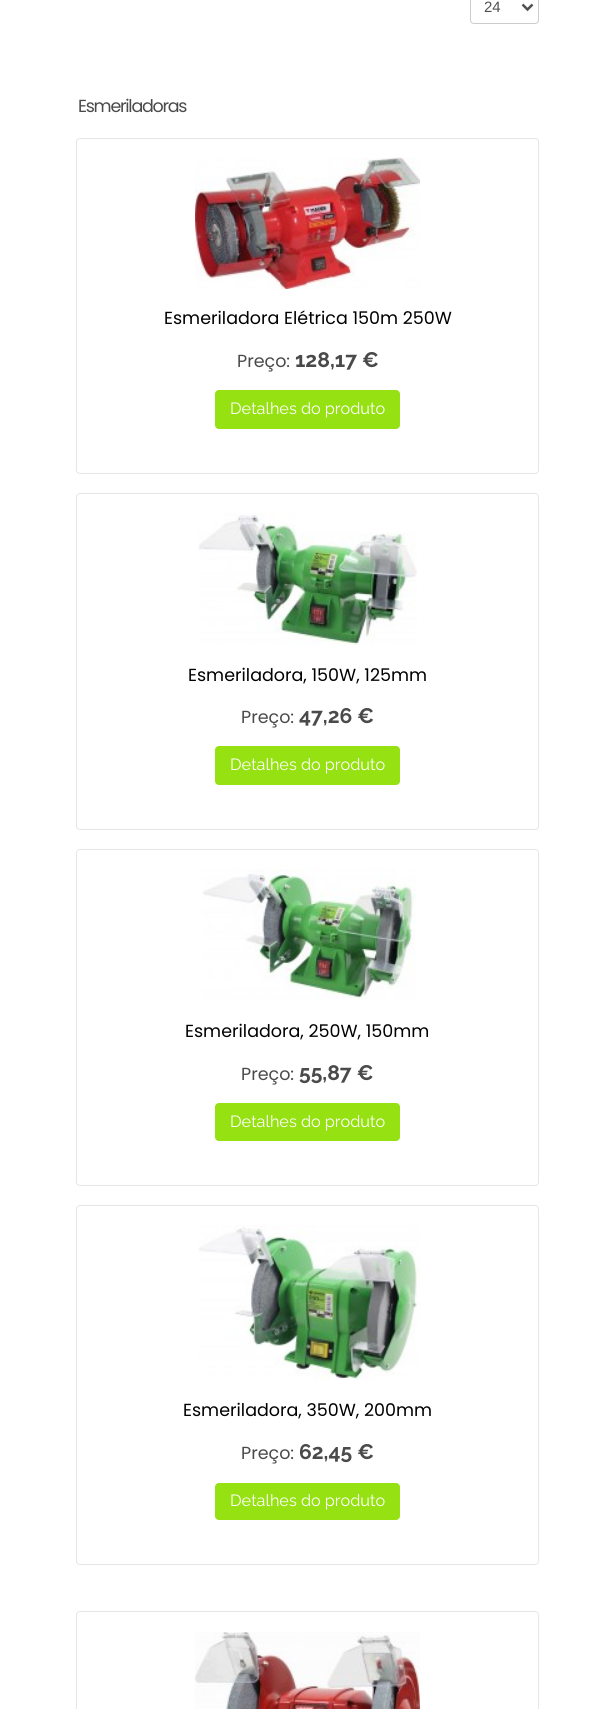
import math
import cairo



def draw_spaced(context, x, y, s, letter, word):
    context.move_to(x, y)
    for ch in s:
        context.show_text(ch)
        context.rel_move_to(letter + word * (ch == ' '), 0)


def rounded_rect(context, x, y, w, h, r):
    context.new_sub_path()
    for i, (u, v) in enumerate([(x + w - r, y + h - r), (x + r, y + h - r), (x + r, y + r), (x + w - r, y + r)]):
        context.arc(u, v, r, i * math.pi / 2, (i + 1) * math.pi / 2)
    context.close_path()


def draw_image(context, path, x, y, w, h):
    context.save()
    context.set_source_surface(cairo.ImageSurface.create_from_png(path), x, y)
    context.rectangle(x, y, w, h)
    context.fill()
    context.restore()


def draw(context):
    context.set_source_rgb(1, 1, 1)
    context.paint()
    rounded_rect(context, 470.5, -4.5, 68, 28, 3.5)
    context.set_source_rgb(204 / 255, 204 / 255, 204 / 255)
    context.set_line_width(1)
    context.stroke()
    context.new_path()
    context.move_to(522.5, 4.5)
    context.line_to(527.5, 9.5)
    context.line_to(532.5, 4.5)
    context.set_source_rgb(80 / 255, 80 / 255, 80 / 255)
    context.set_line_width(2.5)
    context.stroke()
    rounded_rect(context, 76.5, 138.5, 462, 335, 3.5)
    context.set_source_rgb(230 / 255, 230 / 255, 230 / 255)
    context.set_line_width(1)
    context.stroke()
    draw_image(context, "images/1.png", 195, 157, 225, 132)
    context.set_source_rgb(150 / 255, 225 / 255, 18 / 255)
    rounded_rect(context, 215, 390, 185, 39, 4)
    context.fill()
    rounded_rect(context, 76.5, 493.5, 462, 336, 3.5)
    context.set_source_rgb(230 / 255, 230 / 255, 230 / 255)
    context.stroke()
    draw_image(context, "images/2.png", 198, 513, 219, 132)
    context.set_source_rgb(150 / 255, 225 / 255, 18 / 255)
    rounded_rect(context, 215, 746, 185, 39, 4)
    context.fill()
    rounded_rect(context, 76.5, 849.5, 462, 336, 3.5)
    context.set_source_rgb(230 / 255, 230 / 255, 230 / 255)
    context.stroke()
    draw_image(context, "images/3.png", 202, 869, 214, 132)
    context.set_source_rgb(150 / 255, 225 / 255, 18 / 255)
    rounded_rect(context, 215, 1103, 185, 38, 4)
    context.fill()
    rounded_rect(context, 76.5, 1205.5, 462, 359, 3.5)
    context.set_source_rgb(230 / 255, 230 / 255, 230 / 255)
    context.stroke()
    draw_image(context, "images/4.png", 198, 1225, 222, 155)
    context.set_source_rgb(150 / 255, 225 / 255, 18 / 255)
    rounded_rect(context, 215, 1483, 185, 37, 4)
    context.fill()
    rounded_rect(context, 76.5, 1611.5, 462, 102, 3.5)
    context.set_source_rgb(230 / 255, 230 / 255, 230 / 255)
    context.stroke()
    draw_image(context, "images/5.png", 195, 1632, 225, 77)
    context.select_font_face("Liberation Sans")
    context.set_font_size(15)
    context.set_source_rgb(80 / 255, 80 / 255, 80 / 255)
    context.move_to(484, 12)
    context.show_text("24")
    context.select_font_face("Poppins")
    context.set_font_size(17.5)
    context.set_source_rgb(74 / 255, 74 / 255, 74 / 255)
    draw_spaced(context, 78, 112, "Esmeriladoras", -1.25, 0)
    context.set_source_rgb(0, 0, 0)
    context.move_to(164, 324)
    context.show_text("Esmeriladora Elétrica 150m 250W")
    context.set_source_rgb(74 / 255, 74 / 255, 74 / 255)
    context.move_to(237, 367)
    context.show_text("Preço:")
    context.select_font_face("Raleway", cairo.FontSlant.NORMAL, cairo.FontWeight.BOLD)
    context.set_font_size(21)
    context.move_to(295, 367)
    context.show_text("128,17 €")
    context.select_font_face("Raleway")
    context.set_font_size(16.25)
    context.set_source_rgb(1, 1, 1)
    context.move_to(230, 414)
    context.show_text("Detalhes do produto")
    context.select_font_face("Poppins")
    context.set_font_size(17.5)
    context.set_source_rgb(0, 0, 0)
    context.move_to(188, 681)
    context.show_text("Esmeriladora, 150W, 125mm")
    context.set_source_rgb(74 / 255, 74 / 255, 74 / 255)
    context.move_to(241, 723)
    context.show_text("Preço:")
    context.select_font_face("Raleway", cairo.FontSlant.NORMAL, cairo.FontWeight.BOLD)
    context.set_font_size(21)
    context.move_to(299, 723)
    context.show_text("47,26 €")
    context.select_font_face("Raleway")
    context.set_font_size(16.25)
    context.set_source_rgb(1, 1, 1)
    context.move_to(230, 770)
    context.show_text("Detalhes do produto")
    context.select_font_face("Poppins")
    context.set_font_size(17.5)
    context.set_source_rgb(0, 0, 0)
    context.move_to(185, 1037)
    context.show_text("Esmeriladora, 250W, 150mm")
    context.set_source_rgb(74 / 255, 74 / 255, 74 / 255)
    context.move_to(241, 1080)
    context.show_text("Preço:")
    context.select_font_face("Raleway", cairo.FontSlant.NORMAL, cairo.FontWeight.BOLD)
    context.set_font_size(21)
    context.move_to(299, 1080)
    context.show_text("55,87 €")
    context.select_font_face("Raleway")
    context.set_font_size(16.25)
    context.set_source_rgb(1, 1, 1)
    context.move_to(230, 1127)
    context.show_text("Detalhes do produto")
    context.select_font_face("Poppins")
    context.set_font_size(17.5)
    context.set_source_rgb(0, 0, 0)
    context.move_to(183, 1416)
    context.show_text("Esmeriladora, 350W, 200mm")
    context.set_source_rgb(74 / 255, 74 / 255, 74 / 255)
    context.move_to(241, 1459)
    context.show_text("Preço:")
    context.select_font_face("Raleway", cairo.FontSlant.NORMAL, cairo.FontWeight.BOLD)
    context.set_font_size(21)
    context.move_to(299, 1459)
    context.show_text("62,45 €")
    context.select_font_face("Raleway")
    context.set_font_size(16.25)
    context.set_source_rgb(1, 1, 1)
    context.move_to(230, 1506)
    context.show_text("Detalhes do produto")


surface = cairo.ImageSurface(cairo.Format.RGB24, 615, 1709)
context = cairo.Context(surface)
options = cairo.FontOptions()
options.set_hint_metrics(cairo.HintMetrics.OFF)
options.set_hint_style(cairo.HintStyle.NONE)
context.set_font_options(options)
context.set_miter_limit(4)
draw(context)
surface.write_to_png("out.png")
